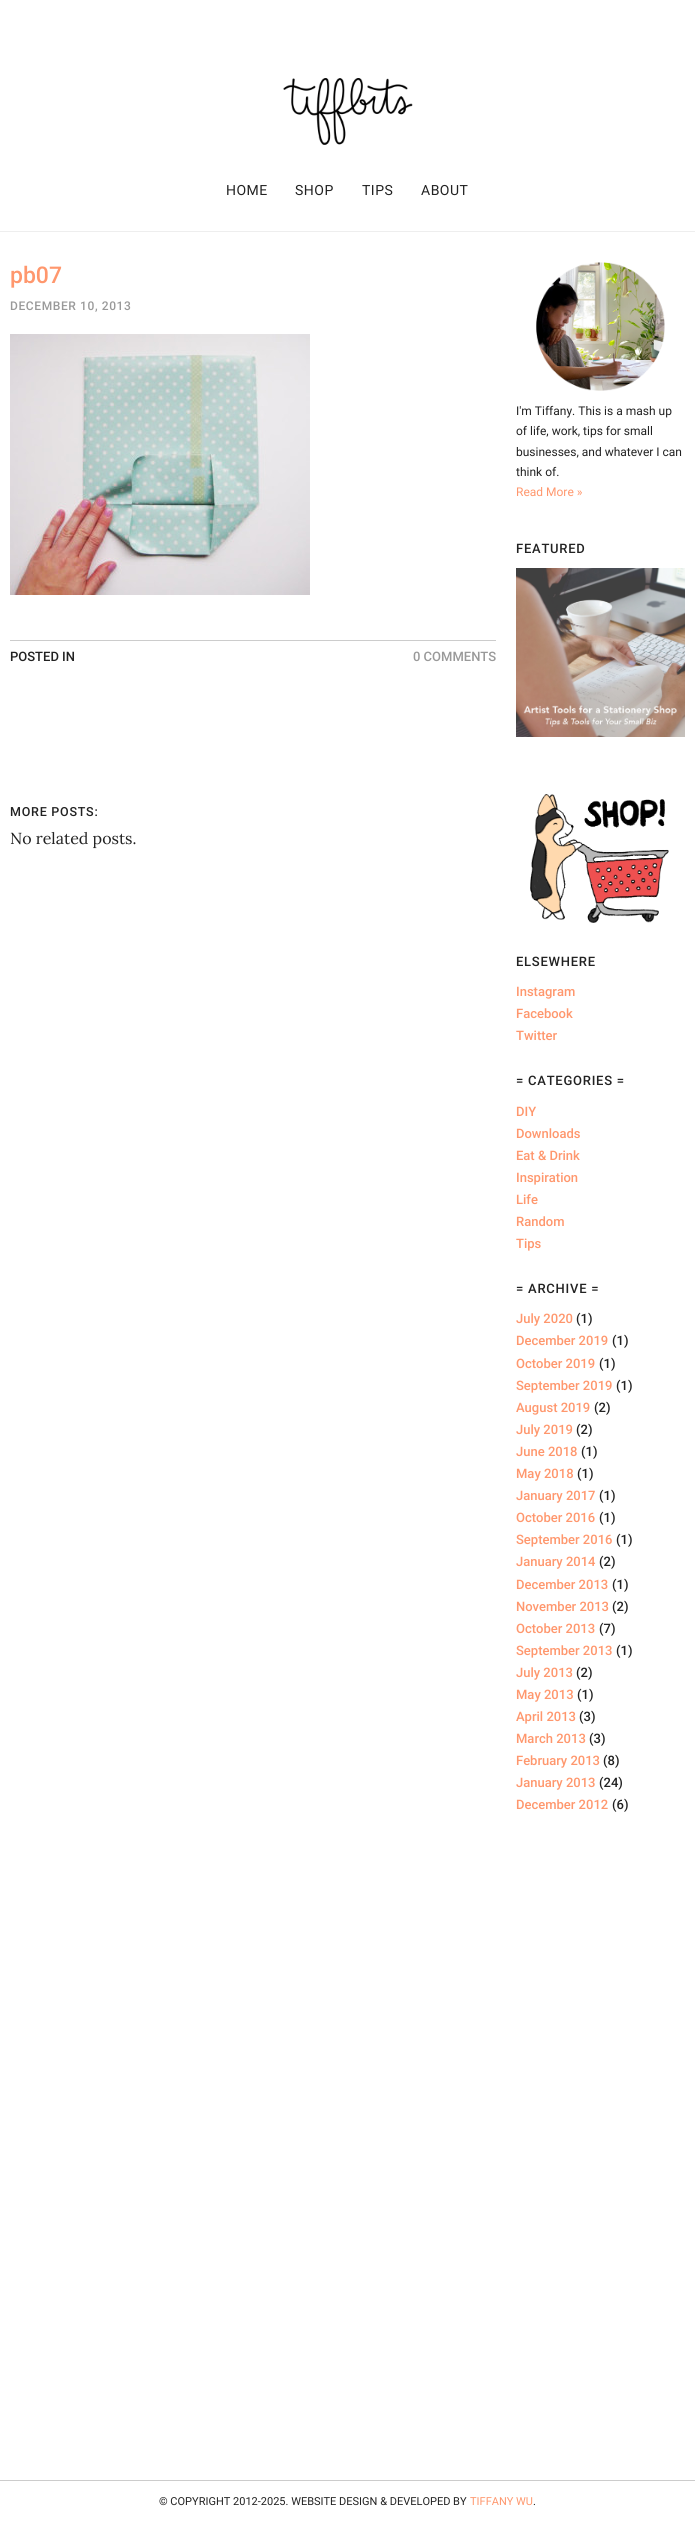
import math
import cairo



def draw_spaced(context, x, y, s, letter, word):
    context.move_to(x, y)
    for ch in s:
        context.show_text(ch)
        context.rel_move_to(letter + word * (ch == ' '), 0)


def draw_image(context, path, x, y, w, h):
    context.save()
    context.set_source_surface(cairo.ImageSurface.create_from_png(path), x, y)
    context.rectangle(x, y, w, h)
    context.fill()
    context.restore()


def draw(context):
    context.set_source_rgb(1, 1, 1)
    context.paint()
    context.set_source_rgb(238 / 255, 238 / 255, 238 / 255)
    context.rectangle(0, 231, 695, 1)
    context.fill()
    draw_image(context, "images/1.png", 283, 78, 130, 67)
    draw_image(context, "images/2.png", 10, 334, 300, 261)
    context.set_source_rgb(204 / 255, 204 / 255, 204 / 255)
    context.rectangle(10, 640, 486, 1)
    context.fill()
    draw_image(context, "images/3.png", 536, 262, 129, 129)
    draw_image(context, "images/4.png", 516, 568, 169, 169)
    draw_image(context, "images/5.png", 530, 794, 139, 129)
    context.rectangle(0, 2480, 695, 1)
    context.fill()
    context.select_font_face("Roboto")
    context.set_font_size(14)
    context.set_source_rgb(34 / 255, 34 / 255, 34 / 255)
    draw_spaced(context, 226, 195, "HOME", 0.5, 0)
    draw_spaced(context, 295, 195, "SHOP", 0.5, 0)
    draw_spaced(context, 362, 195, "TIPS", 0.5, 0)
    draw_spaced(context, 421, 195, "ABOUT", 0.5, 0)
    context.select_font_face("Roboto Medium")
    context.set_font_size(23)
    context.set_source_rgb(1, 151 / 255, 109 / 255)
    context.move_to(10, 283)
    context.show_text("pb07")
    context.set_font_size(12)
    context.set_source_rgb(153 / 255, 153 / 255, 153 / 255)
    draw_spaced(context, 10, 310, "DECEMBER 10, 2013", 0.6, 0)
    context.set_font_size(13)
    context.set_source_rgb(34 / 255, 34 / 255, 34 / 255)
    context.move_to(10, 661)
    context.show_text("POSTED IN")
    context.set_source_rgb(153 / 255, 153 / 255, 153 / 255)
    context.move_to(413, 661)
    context.show_text("0 COMMENTS")
    context.set_font_size(12.5)
    context.set_source_rgb(34 / 255, 34 / 255, 34 / 255)
    draw_spaced(context, 10, 816, "MORE POSTS:", 0.75, 0)
    context.select_font_face("Lora")
    context.set_font_size(16)
    context.move_to(10, 844)
    context.show_text("No related posts.")
    context.select_font_face("Roboto")
    context.set_font_size(12)
    context.move_to(516, 415)
    context.show_text("I'm Tiffany. This is a mash up")
    context.move_to(516, 435)
    context.show_text("of life, work, tips for small")
    context.move_to(516, 456)
    context.show_text("businesses, and whatever I can")
    context.move_to(516, 476)
    context.show_text("think of.")
    context.set_source_rgb(1, 151 / 255, 109 / 255)
    context.move_to(516, 496)
    context.show_text("Read More »")
    context.select_font_face("Roboto Medium")
    context.set_font_size(13)
    context.set_source_rgb(34 / 255, 34 / 255, 34 / 255)
    draw_spaced(context, 516, 553, "FEATURED", 0.75, 0)
    draw_spaced(context, 516, 966, "ELSEWHERE", 0.75, 0)
    context.set_source_rgb(1, 151 / 255, 109 / 255)
    context.move_to(516, 996)
    context.show_text("Instagram")
    context.move_to(516, 1018)
    context.show_text("Facebook")
    context.move_to(516, 1040)
    context.show_text("Twitter")
    context.set_source_rgb(34 / 255, 34 / 255, 34 / 255)
    draw_spaced(context, 516, 1085, "= CATEGORIES =", 0.75, 0)
    context.set_source_rgb(1, 151 / 255, 109 / 255)
    context.move_to(516, 1116)
    context.show_text("DIY")
    context.move_to(516, 1138)
    context.show_text("Downloads")
    context.move_to(516, 1160)
    context.show_text("Eat & Drink")
    context.move_to(516, 1182)
    context.show_text("Inspiration")
    context.move_to(516, 1204)
    context.show_text("Life")
    context.move_to(516, 1226)
    context.show_text("Random")
    context.move_to(516, 1248)
    context.show_text("Tips")
    context.set_source_rgb(34 / 255, 34 / 255, 34 / 255)
    draw_spaced(context, 516, 1293, "= ARCHIVE =", 0.75, 0)
    context.set_source_rgb(1, 151 / 255, 109 / 255)
    context.move_to(516, 1323)
    context.show_text("July 2020")
    context.set_source_rgb(34 / 255, 34 / 255, 34 / 255)
    context.move_to(576, 1323)
    context.show_text("(1)")
    context.set_source_rgb(1, 151 / 255, 109 / 255)
    context.move_to(516, 1345)
    context.show_text("December 2019")
    context.set_source_rgb(34 / 255, 34 / 255, 34 / 255)
    context.move_to(612, 1345)
    context.show_text("(1)")
    context.set_source_rgb(1, 151 / 255, 109 / 255)
    context.move_to(516, 1368)
    context.show_text("October 2019")
    context.set_source_rgb(34 / 255, 34 / 255, 34 / 255)
    context.move_to(599, 1368)
    context.show_text("(1)")
    context.set_source_rgb(1, 151 / 255, 109 / 255)
    context.move_to(516, 1390)
    context.show_text("September 2019")
    context.set_source_rgb(34 / 255, 34 / 255, 34 / 255)
    context.move_to(616, 1390)
    context.show_text("(1)")
    context.set_source_rgb(1, 151 / 255, 109 / 255)
    context.move_to(516, 1412)
    context.show_text("August 2019")
    context.set_source_rgb(34 / 255, 34 / 255, 34 / 255)
    context.move_to(594, 1412)
    context.show_text("(2)")
    context.set_source_rgb(1, 151 / 255, 109 / 255)
    context.move_to(516, 1434)
    context.show_text("July 2019")
    context.set_source_rgb(34 / 255, 34 / 255, 34 / 255)
    context.move_to(576, 1434)
    context.show_text("(2)")
    context.set_source_rgb(1, 151 / 255, 109 / 255)
    context.move_to(516, 1456)
    context.show_text("June 2018")
    context.set_source_rgb(34 / 255, 34 / 255, 34 / 255)
    context.move_to(581, 1456)
    context.show_text("(1)")
    context.set_source_rgb(1, 151 / 255, 109 / 255)
    context.move_to(516, 1478)
    context.show_text("May 2018")
    context.set_source_rgb(34 / 255, 34 / 255, 34 / 255)
    context.move_to(577, 1478)
    context.show_text("(1)")
    context.set_source_rgb(1, 151 / 255, 109 / 255)
    context.move_to(516, 1500)
    context.show_text("January 2017")
    context.set_source_rgb(34 / 255, 34 / 255, 34 / 255)
    context.move_to(599, 1500)
    context.show_text("(1)")
    context.set_source_rgb(1, 151 / 255, 109 / 255)
    context.move_to(516, 1522)
    context.show_text("October 2016")
    context.set_source_rgb(34 / 255, 34 / 255, 34 / 255)
    context.move_to(599, 1522)
    context.show_text("(1)")
    context.set_source_rgb(1, 151 / 255, 109 / 255)
    context.move_to(516, 1544)
    context.show_text("September 2016")
    context.set_source_rgb(34 / 255, 34 / 255, 34 / 255)
    context.move_to(616, 1544)
    context.show_text("(1)")
    context.set_source_rgb(1, 151 / 255, 109 / 255)
    context.move_to(516, 1566)
    context.show_text("January 2014")
    context.set_source_rgb(34 / 255, 34 / 255, 34 / 255)
    context.move_to(599, 1566)
    context.show_text("(2)")
    context.set_source_rgb(1, 151 / 255, 109 / 255)
    context.move_to(516, 1589)
    context.show_text("December 2013")
    context.set_source_rgb(34 / 255, 34 / 255, 34 / 255)
    context.move_to(612, 1589)
    context.show_text("(1)")
    context.set_source_rgb(1, 151 / 255, 109 / 255)
    context.move_to(516, 1611)
    context.show_text("November 2013")
    context.set_source_rgb(34 / 255, 34 / 255, 34 / 255)
    context.move_to(612, 1611)
    context.show_text("(2)")
    context.set_source_rgb(1, 151 / 255, 109 / 255)
    context.move_to(516, 1633)
    context.show_text("October 2013")
    context.set_source_rgb(34 / 255, 34 / 255, 34 / 255)
    context.move_to(599, 1633)
    context.show_text("(7)")
    context.set_source_rgb(1, 151 / 255, 109 / 255)
    context.move_to(516, 1655)
    context.show_text("September 2013")
    context.set_source_rgb(34 / 255, 34 / 255, 34 / 255)
    context.move_to(616, 1655)
    context.show_text("(1)")
    context.set_source_rgb(1, 151 / 255, 109 / 255)
    context.move_to(516, 1677)
    context.show_text("July 2013")
    context.set_source_rgb(34 / 255, 34 / 255, 34 / 255)
    context.move_to(576, 1677)
    context.show_text("(2)")
    context.set_source_rgb(1, 151 / 255, 109 / 255)
    context.move_to(516, 1699)
    context.show_text("May 2013")
    context.set_source_rgb(34 / 255, 34 / 255, 34 / 255)
    context.move_to(577, 1699)
    context.show_text("(1)")
    context.set_source_rgb(1, 151 / 255, 109 / 255)
    context.move_to(516, 1721)
    context.show_text("April 2013")
    context.set_source_rgb(34 / 255, 34 / 255, 34 / 255)
    context.move_to(579, 1721)
    context.show_text("(3)")
    context.set_source_rgb(1, 151 / 255, 109 / 255)
    context.move_to(516, 1743)
    context.show_text("March 2013")
    context.set_source_rgb(34 / 255, 34 / 255, 34 / 255)
    context.move_to(589, 1743)
    context.show_text("(3)")
    context.set_source_rgb(1, 151 / 255, 109 / 255)
    context.move_to(516, 1765)
    context.show_text("February 2013")
    context.set_source_rgb(34 / 255, 34 / 255, 34 / 255)
    context.move_to(603, 1765)
    context.show_text("(8)")
    context.set_source_rgb(1, 151 / 255, 109 / 255)
    context.move_to(516, 1787)
    context.show_text("January 2013")
    context.set_source_rgb(34 / 255, 34 / 255, 34 / 255)
    context.move_to(599, 1787)
    context.show_text("(24)")
    context.set_source_rgb(1, 151 / 255, 109 / 255)
    context.move_to(516, 1809)
    context.show_text("December 2012")
    context.set_source_rgb(34 / 255, 34 / 255, 34 / 255)
    context.move_to(612, 1809)
    context.show_text("(6)")
    context.select_font_face("Roboto")
    context.set_font_size(11)
    context.move_to(159, 2505)
    context.show_text("© COPYRIGHT 2012-2025. WEBSITE DESIGN & DEVELOPED BY")
    context.set_source_rgb(1, 151 / 255, 109 / 255)
    context.move_to(470, 2505)
    context.show_text("TIFFANY WU")
    context.set_source_rgb(34 / 255, 34 / 255, 34 / 255)
    context.move_to(533, 2505)
    context.show_text(".")


surface = cairo.ImageSurface(cairo.Format.RGB24, 695, 2540)
context = cairo.Context(surface)
options = cairo.FontOptions()
options.set_hint_metrics(cairo.HintMetrics.OFF)
options.set_hint_style(cairo.HintStyle.NONE)
context.set_font_options(options)
context.set_miter_limit(4)
draw(context)
surface.write_to_png("out.png")
